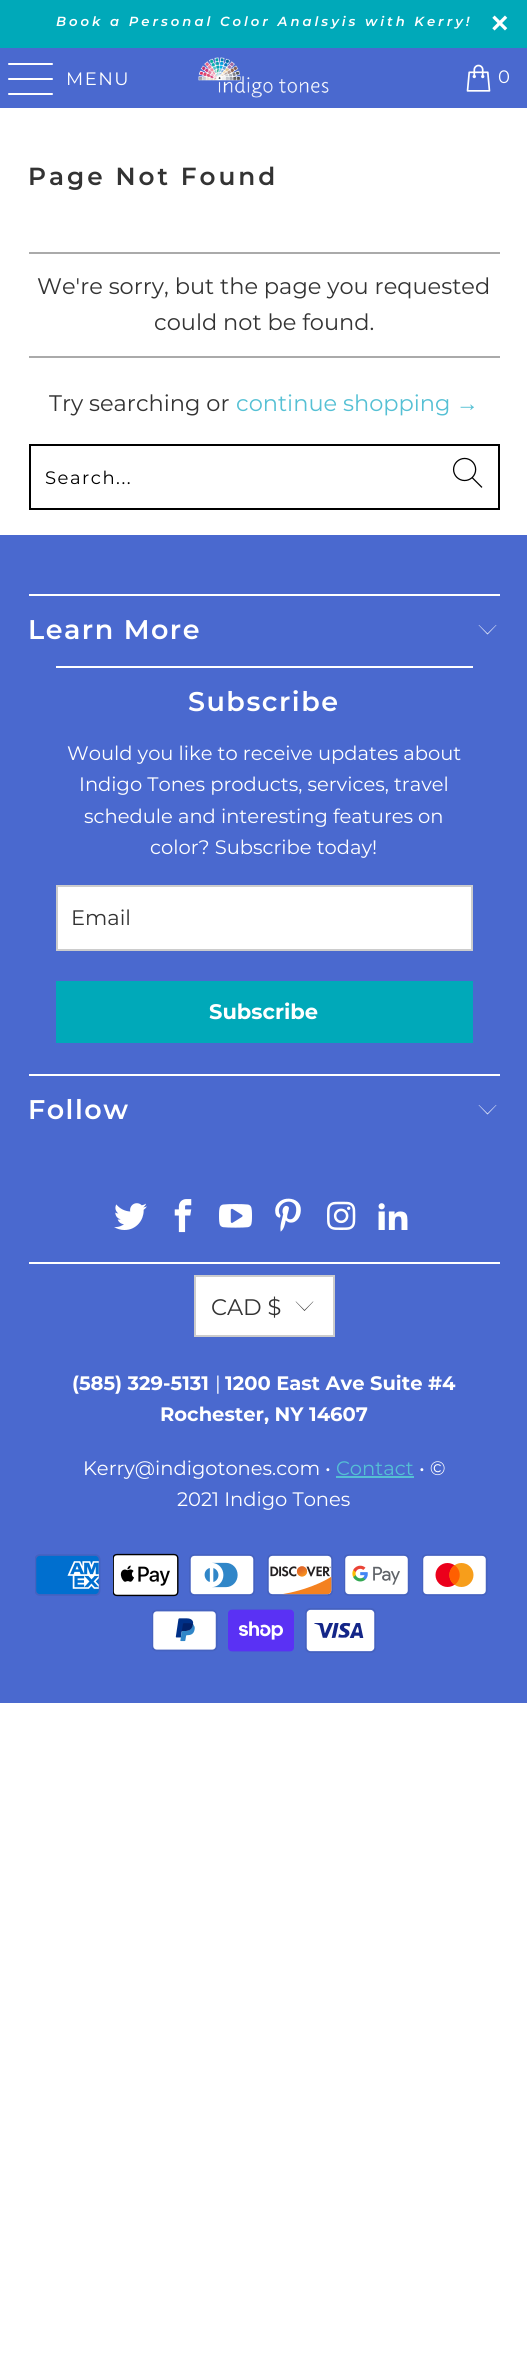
import math
import cairo



def draw_spaced(context, x, y, s, letter, word):
    context.move_to(x, y)
    for ch in s:
        context.show_text(ch)
        context.rel_move_to(letter + word * (ch == ' '), 0)


def rounded_rect(context, x, y, w, h, r):
    context.new_sub_path()
    for i, (u, v) in enumerate([(x + w - r, y + h - r), (x + r, y + h - r), (x + r, y + r), (x + w - r, y + r)]):
        context.arc(u, v, r, i * math.pi / 2, (i + 1) * math.pi / 2)
    context.close_path()


def draw_image(context, path, x, y, w, h):
    context.save()
    context.set_source_surface(cairo.ImageSurface.create_from_png(path), x, y)
    context.rectangle(x, y, w, h)
    context.fill()
    context.restore()


def draw(context):
    context.set_source_rgb(1, 1, 1)
    context.paint()
    context.set_source_rgb(0, 169 / 255, 185 / 255)
    context.rectangle(0, 0, 527, 48)
    context.fill()
    context.set_source_rgb(74 / 255, 105 / 255, 207 / 255)
    context.rectangle(0, 48, 527, 60)
    context.fill()
    context.set_source_rgb(1, 1, 1)
    rounded_rect(context, 8, 63, 45, 2, 1)
    context.fill()
    rounded_rect(context, 8, 78, 45, 2, 1)
    context.fill()
    rounded_rect(context, 8, 93, 45, 2, 1)
    context.fill()
    draw_image(context, "images/1.png", 198, 57, 131, 41)
    draw_image(context, "images/2.png", 466, 64, 25, 28)
    context.set_source_rgb(170 / 255, 170 / 255, 170 / 255)
    context.rectangle(29, 252, 471, 2)
    context.fill()
    context.rectangle(29, 356, 471, 2)
    context.fill()
    context.rectangle(30, 445, 469, 64)
    context.set_source_rgb(0, 0, 0)
    context.stroke()
    draw_image(context, "images/3.png", 452, 457, 31, 31)
    context.set_source_rgb(74 / 255, 105 / 255, 207 / 255)
    context.rectangle(0, 535, 527, 1168)
    context.fill()
    context.set_source_rgb(1, 1, 1)
    context.rectangle(29, 594, 471, 2)
    context.fill()
    context.new_path()
    context.move_to(487.5, 634.5)
    context.line_to(478.5, 625)
    context.line_to(479, 625)
    context.line_to(487.5, 633.5)
    context.line_to(496, 625)
    context.line_to(496.5, 625)
    context.close_path()
    context.fill()
    context.rectangle(56, 666, 417, 2)
    context.fill()
    context.rectangle(57, 886, 415, 64)
    context.fill_preserve()
    context.set_source_rgb(204 / 255, 204 / 255, 204 / 255)
    context.stroke()
    context.set_source_rgb(0, 169 / 255, 185 / 255)
    context.rectangle(56, 981, 417, 62)
    context.fill()
    context.set_source_rgb(1, 1, 1)
    context.rectangle(29, 1074, 471, 2)
    context.fill()
    context.new_path()
    context.move_to(487.5, 1114.5)
    context.line_to(478.5, 1105)
    context.line_to(479, 1105)
    context.line_to(487.5, 1113.5)
    context.line_to(496, 1105)
    context.line_to(496.5, 1105)
    context.close_path()
    context.fill()
    draw_image(context, "images/4.png", 114, 1203, 33, 27)
    draw_image(context, "images/5.png", 174, 1199, 18, 34)
    draw_image(context, "images/6.png", 219, 1204, 33, 24)
    draw_image(context, "images/7.png", 275, 1198, 26, 34)
    draw_image(context, "images/8.png", 327, 1201, 29, 29)
    draw_image(context, "images/9.png", 378, 1203, 30, 27)
    context.rectangle(29, 1262, 471, 2)
    context.fill()
    context.rectangle(195, 1276, 139, 60)
    context.fill_preserve()
    context.set_source_rgb(204 / 255, 204 / 255, 204 / 255)
    context.stroke()
    context.set_source_rgb(51 / 255, 51 / 255, 51 / 255)
    context.new_path()
    context.move_to(304.5, 1311)
    context.line_to(295.5, 1301.5)
    context.line_to(296, 1301.5)
    context.line_to(304.5, 1310)
    context.line_to(313, 1301.5)
    context.line_to(313.5, 1301.5)
    context.close_path()
    context.fill()
    context.set_source_rgb(85 / 255, 192 / 255, 212 / 255)
    context.rectangle(336, 1476, 78, 2)
    context.fill()
    draw_image(context, "images/10.png", 35, 1554, 66, 42)
    draw_image(context, "images/11.png", 113, 1553, 66, 44)
    draw_image(context, "images/12.png", 189, 1554, 66, 42)
    draw_image(context, "images/13.png", 267, 1554, 66, 42)
    draw_image(context, "images/14.png", 344, 1554, 66, 42)
    draw_image(context, "images/15.png", 422, 1554, 66, 42)
    draw_image(context, "images/16.png", 152, 1609, 66, 43)
    draw_image(context, "images/17.png", 228, 1609, 66, 43)
    draw_image(context, "images/18.png", 305, 1608, 71, 45)
    context.select_font_face("Montserrat SemiBold", cairo.FontSlant.ITALIC)
    context.set_font_size(13.2)
    context.set_source_rgb(1, 1, 1)
    draw_spaced(context, 56, 26, "Book a Personal Color Analsyis with Kerry!", 3, 0)
    context.select_font_face("Liberation Sans", cairo.FontSlant.NORMAL, cairo.FontWeight.BOLD)
    context.set_font_size(30)
    draw_spaced(context, 491, 33, "×", 3, 0)
    context.select_font_face("Montserrat")
    context.set_font_size(18)
    draw_spaced(context, 66, 85, "MENU", 1.5, 0)
    draw_spaced(context, 498, 83, "0", 3, 0)
    context.select_font_face("Montserrat SemiBold")
    context.set_font_size(24.75)
    context.set_source_rgb(51 / 255, 51 / 255, 51 / 255)
    draw_spaced(context, 28, 185, "Page Not Found", 3, 0)
    context.select_font_face("Montserrat")
    context.set_font_size(22.5)
    context.move_to(37, 294)
    context.show_text("We're sorry, but the page you requested")
    context.move_to(154, 330)
    context.show_text("could not be found.")
    context.move_to(49, 411)
    context.show_text("Try searching or")
    context.set_source_rgb(85 / 255, 192 / 255, 212 / 255)
    context.move_to(236, 411)
    context.show_text("continue shopping")
    context.select_font_face("Liberation Sans")
    context.move_to(456, 411)
    context.show_text("→")
    context.select_font_face("Montserrat")
    context.set_font_size(18)
    context.set_source_rgb(0, 0, 0)
    draw_spaced(context, 45, 484, "Search...", 1.5, 0)
    context.select_font_face("Montserrat SemiBold")
    context.set_font_size(27)
    context.set_source_rgb(1, 1, 1)
    draw_spaced(context, 28, 639, "Learn More", 1.5, 0)
    draw_spaced(context, 188, 711, "Subscribe", 1.5, 0)
    context.select_font_face("Montserrat")
    context.set_font_size(19.5)
    context.move_to(67, 760)
    context.show_text("Would you like to receive updates about")
    context.move_to(79, 791)
    context.show_text("Indigo Tones products, services, travel")
    context.move_to(84, 823)
    context.show_text("schedule and interesting features on")
    context.move_to(150, 854)
    context.show_text("color? Subscribe today!")
    context.set_font_size(21)
    context.set_source_rgb(51 / 255, 51 / 255, 51 / 255)
    context.move_to(71, 925)
    context.show_text("Email")
    context.select_font_face("Montserrat", cairo.FontSlant.NORMAL, cairo.FontWeight.BOLD)
    context.set_source_rgb(1, 1, 1)
    context.move_to(209, 1019)
    context.show_text("Subscribe")
    context.select_font_face("Montserrat SemiBold")
    context.set_font_size(27)
    draw_spaced(context, 28, 1119, "Follow", 1.5, 0)
    context.select_font_face("Montserrat")
    context.set_font_size(22.5)
    context.set_source_rgb(51 / 255, 51 / 255, 51 / 255)
    context.move_to(211, 1315)
    context.show_text("CAD $")
    context.select_font_face("Montserrat", cairo.FontSlant.NORMAL, cairo.FontWeight.BOLD)
    context.set_font_size(19.5)
    context.set_source_rgb(1, 1, 1)
    context.move_to(72, 1390)
    context.show_text("(585) 329-5131")
    context.select_font_face("Montserrat")
    context.move_to(215, 1390)
    context.show_text("|")
    context.select_font_face("Montserrat", cairo.FontSlant.NORMAL, cairo.FontWeight.BOLD)
    context.move_to(225, 1390)
    context.show_text("1200 East Ave")
    context.move_to(370, 1390)
    context.show_text("Suite #4")
    context.move_to(160, 1421)
    context.show_text("Rochester, NY 14607")
    context.select_font_face("Montserrat")
    context.move_to(83, 1475)
    context.show_text("Kerry@indigotones.com")
    context.move_to(325, 1475)
    context.show_text("•")
    context.set_source_rgb(85 / 255, 192 / 255, 212 / 255)
    context.move_to(336, 1475)
    context.show_text("Contact")
    context.set_source_rgb(1, 1, 1)
    context.move_to(419, 1475)
    context.show_text("• ©")
    context.move_to(177, 1506)
    context.show_text("2021 Indigo Tones")


surface = cairo.ImageSurface(cairo.Format.RGB24, 527, 2353)
context = cairo.Context(surface)
options = cairo.FontOptions()
options.set_hint_metrics(cairo.HintMetrics.OFF)
options.set_hint_style(cairo.HintStyle.NONE)
context.set_font_options(options)
context.set_miter_limit(4)
draw(context)
surface.write_to_png("out.png")
